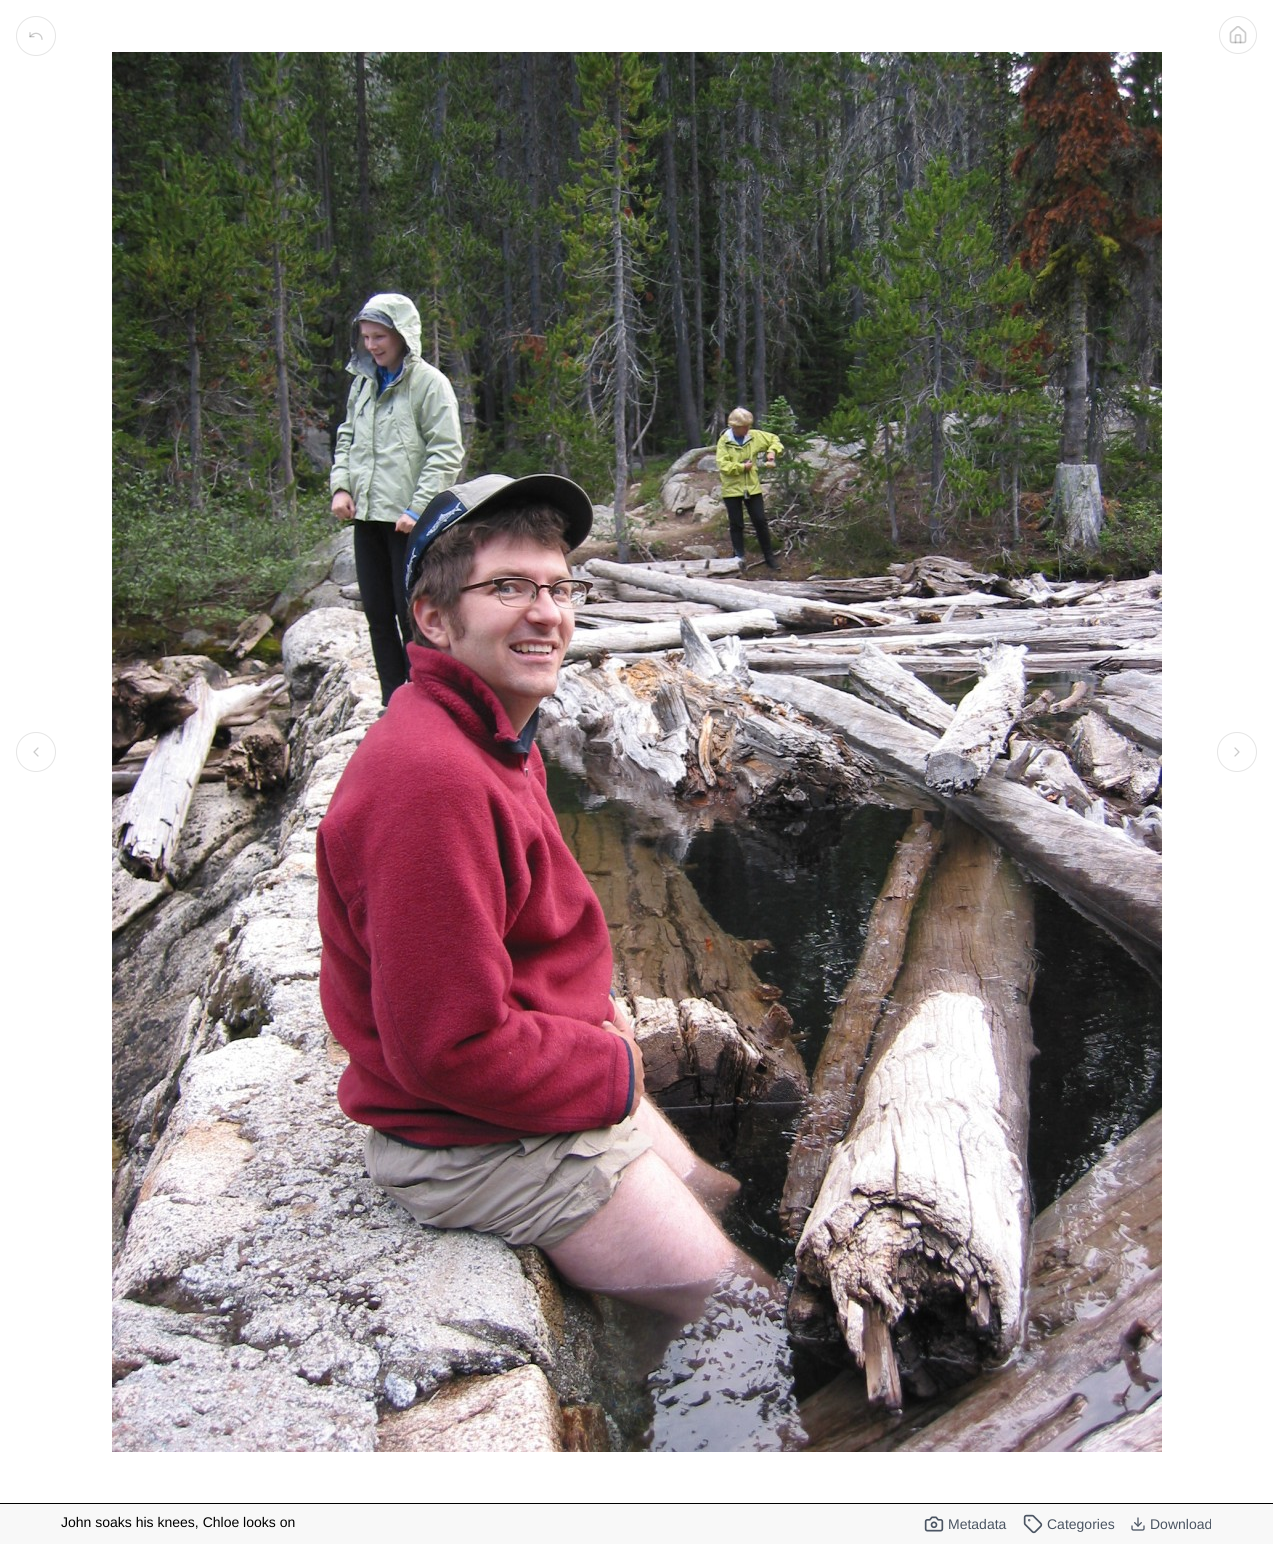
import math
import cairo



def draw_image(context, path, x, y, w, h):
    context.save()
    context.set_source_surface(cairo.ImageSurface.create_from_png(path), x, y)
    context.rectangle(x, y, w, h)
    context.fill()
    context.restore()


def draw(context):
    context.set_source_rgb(1, 1, 1)
    context.paint()
    context.arc(36, 36, 19.5, 0, 2 * math.pi)
    context.set_source_rgb(229 / 255, 229 / 255, 229 / 255)
    context.set_line_width(1)
    context.stroke()
    draw_image(context, "images/1.png", 29, 32, 14, 8)
    context.arc(1238, 35, 18.5, 0, 2 * math.pi)
    context.stroke()
    draw_image(context, "images/2.png", 1229, 26, 18, 18)
    context.arc(36, 752, 19.5, 0, 2 * math.pi)
    context.stroke()
    context.new_path()
    context.move_to(38, 756)
    context.line_to(34, 752)
    context.line_to(38, 748)
    context.set_source_rgb(204 / 255, 204 / 255, 204 / 255)
    context.set_line_width(1.3)
    context.set_line_cap(cairo.LineCap.ROUND)
    context.set_line_join(cairo.LineJoin.ROUND)
    context.stroke()
    draw_image(context, "images/3.png", 112, 52, 1050, 1400)
    context.arc(1237, 752, 19.5, 0, 2 * math.pi)
    context.set_source_rgb(229 / 255, 229 / 255, 229 / 255)
    context.set_line_width(1)
    context.set_line_cap(cairo.LineCap.BUTT)
    context.set_line_join(cairo.LineJoin.MITER)
    context.stroke()
    context.new_path()
    context.move_to(1235, 756)
    context.line_to(1239, 752)
    context.line_to(1235, 748)
    context.set_source_rgb(204 / 255, 204 / 255, 204 / 255)
    context.set_line_width(1.3)
    context.set_line_cap(cairo.LineCap.ROUND)
    context.set_line_join(cairo.LineJoin.ROUND)
    context.stroke()
    context.set_source_rgb(248 / 255, 248 / 255, 248 / 255)
    context.rectangle(0, 1504, 1273, 40)
    context.fill()
    context.set_source_rgb(0, 0, 0)
    context.rectangle(0, 1503, 1273, 1)
    context.fill()
    draw_image(context, "images/4.png", 924, 1516, 20, 16)
    draw_image(context, "images/5.png", 1023, 1514, 20, 20)
    draw_image(context, "images/6.png", 1131, 1517, 14, 14)
    context.select_font_face("Liberation Sans")
    context.set_font_size(14)
    context.move_to(61, 1527)
    context.show_text("John soaks his knees, Chloe looks on")
    context.set_source_rgb(75 / 255, 85 / 255, 99 / 255)
    context.move_to(948, 1529)
    context.show_text("Metadata")
    context.move_to(1047, 1529)
    context.show_text("Categories")
    context.move_to(1150, 1529)
    context.show_text("Download")


surface = cairo.ImageSurface(cairo.Format.RGB24, 1273, 1544)
context = cairo.Context(surface)
options = cairo.FontOptions()
options.set_hint_metrics(cairo.HintMetrics.OFF)
options.set_hint_style(cairo.HintStyle.NONE)
context.set_font_options(options)
context.set_miter_limit(4)
draw(context)
surface.write_to_png("out.png")
